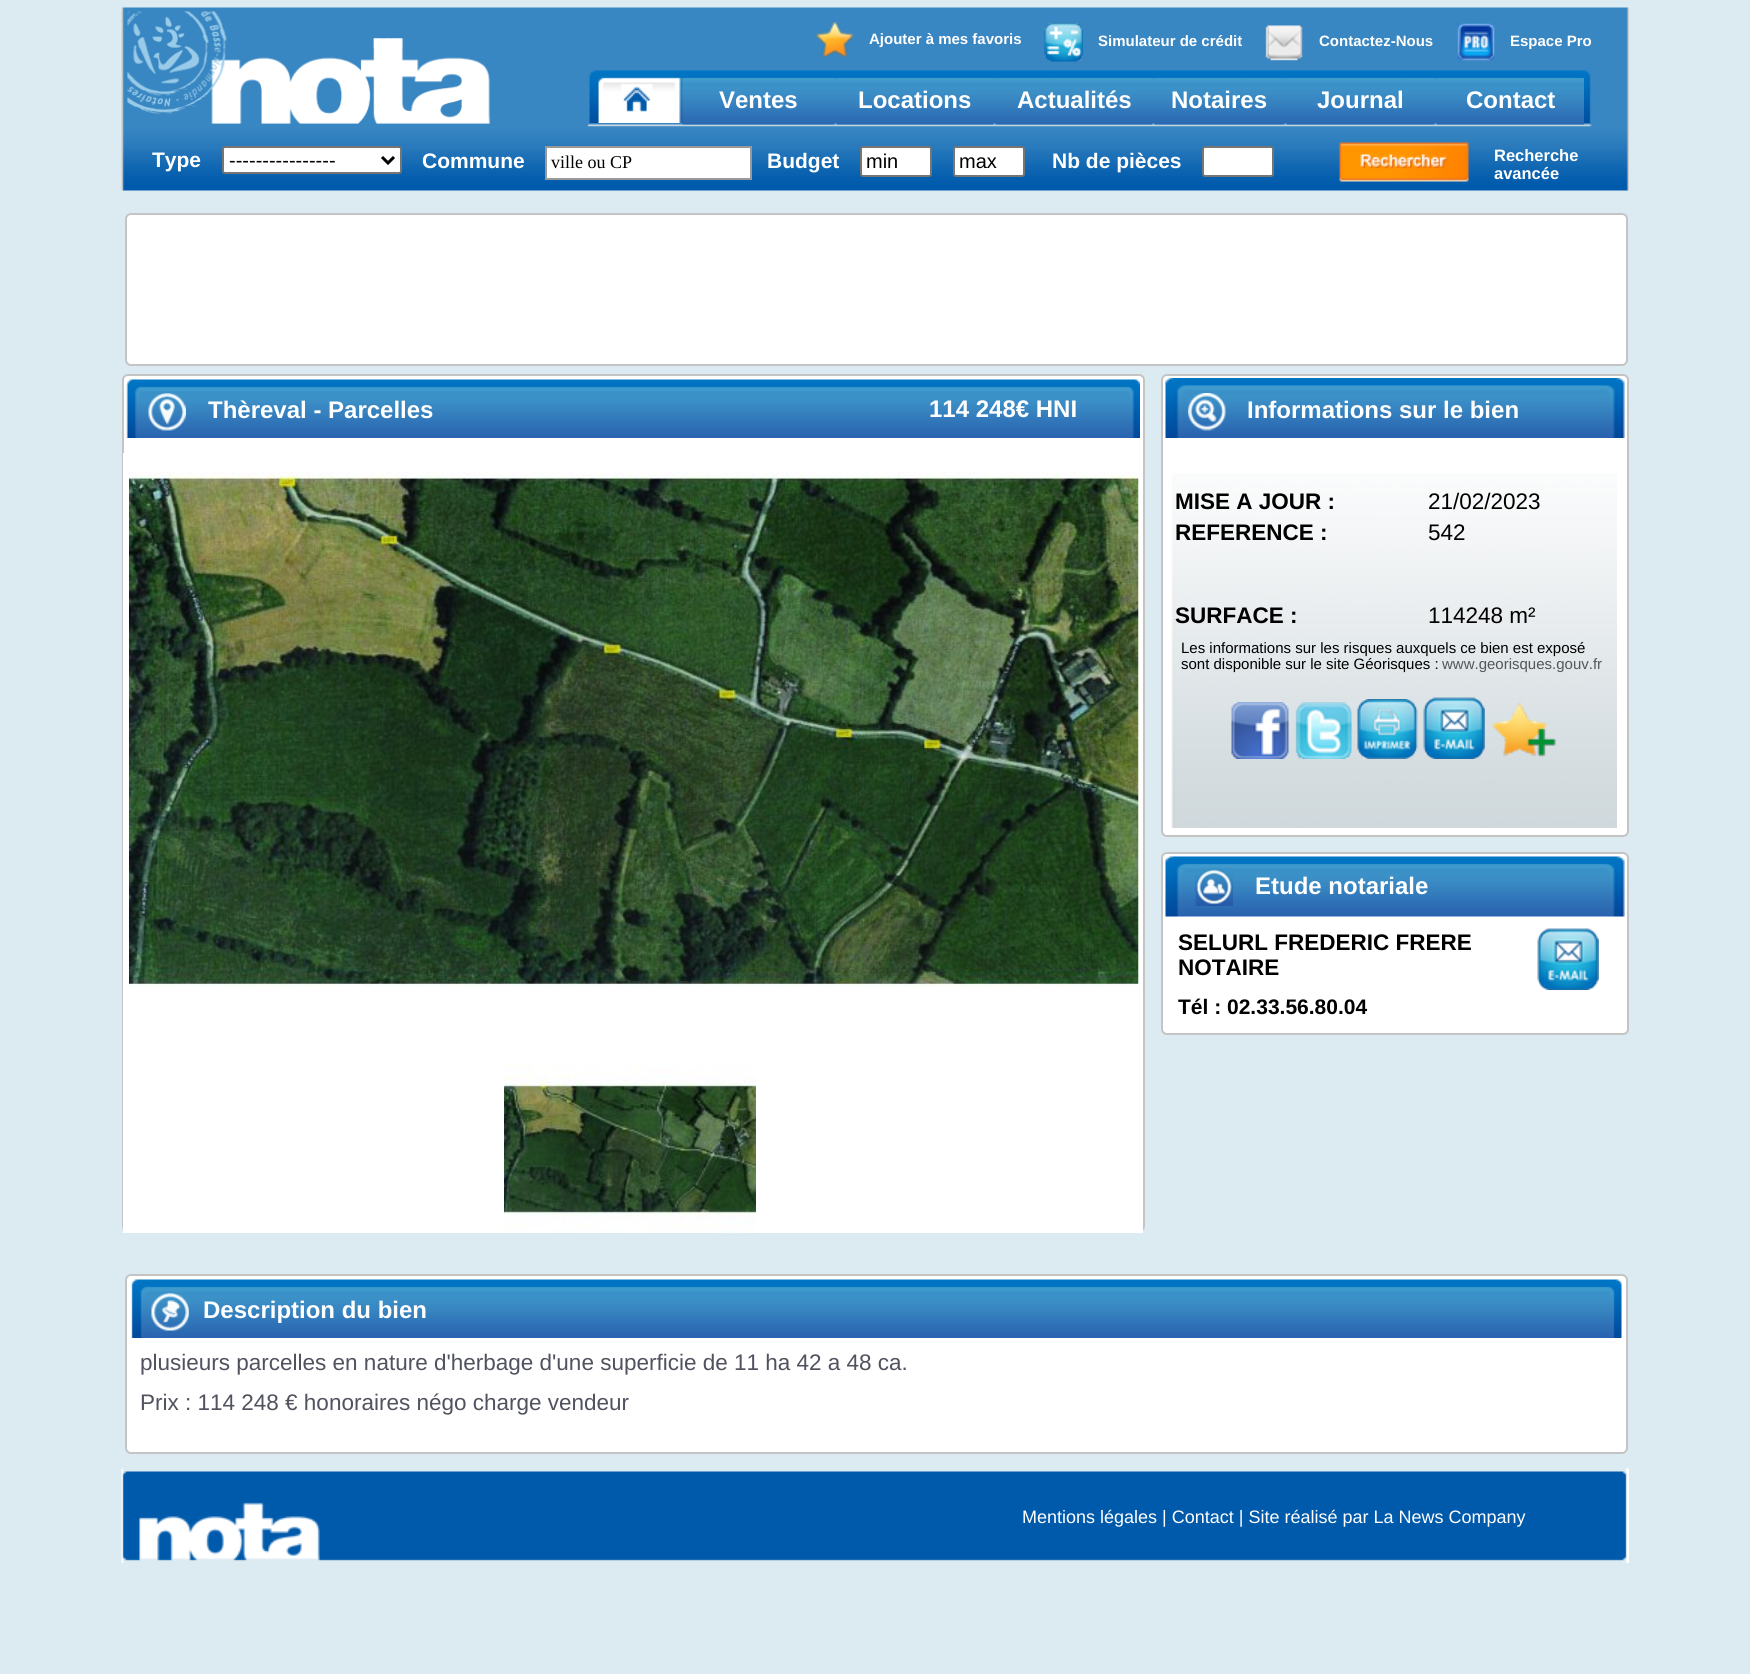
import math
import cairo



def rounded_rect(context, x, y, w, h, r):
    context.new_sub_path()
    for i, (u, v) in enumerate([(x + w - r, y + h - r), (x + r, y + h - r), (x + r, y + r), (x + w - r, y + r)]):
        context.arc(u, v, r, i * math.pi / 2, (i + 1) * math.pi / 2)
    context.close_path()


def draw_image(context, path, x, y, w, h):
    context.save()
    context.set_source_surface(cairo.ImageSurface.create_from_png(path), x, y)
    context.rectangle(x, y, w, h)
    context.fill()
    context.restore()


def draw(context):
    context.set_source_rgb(220 / 255, 235 / 255, 241 / 255)
    context.paint()
    draw_image(context, "images/1.png", 121, 7, 1508, 184)
    draw_image(context, "images/2.png", 127, 11, 363, 113)
    draw_image(context, "images/3.png", 815, 22, 39, 35)
    draw_image(context, "images/4.png", 1044, 22, 39, 40)
    draw_image(context, "images/5.png", 1265, 25, 38, 36)
    draw_image(context, "images/6.png", 1457, 23, 38, 38)
    draw_image(context, "images/7.png", 589, 70, 1002, 53)
    draw_image(context, "images/8.png", 682, 78, 152, 47)
    draw_image(context, "images/9.png", 837, 78, 156, 47)
    draw_image(context, "images/9.png", 996, 78, 156, 47)
    draw_image(context, "images/10.png", 1155, 78, 129, 47)
    draw_image(context, "images/11.png", 1287, 78, 147, 47)
    draw_image(context, "images/11.png", 1437, 78, 147, 47)
    context.set_source_rgb(1, 1, 1)
    rounded_rect(context, 223, 147, 178, 26, 2)
    context.fill_preserve()
    context.set_source_rgb(118 / 255, 118 / 255, 118 / 255)
    context.stroke()
    context.new_path()
    context.move_to(382, 157)
    context.line_to(388, 163)
    context.line_to(394, 157)
    context.set_source_rgb(0, 0, 0)
    context.set_line_width(3)
    context.stroke()
    context.set_source_rgb(1, 1, 1)
    context.rectangle(546, 147, 205, 32)
    context.fill_preserve()
    context.set_source_rgb(153 / 255, 153 / 255, 153 / 255)
    context.set_line_width(2)
    context.stroke()
    context.set_source_rgb(1, 1, 1)
    rounded_rect(context, 861, 147, 70, 29, 2)
    context.fill_preserve()
    context.set_source_rgb(118 / 255, 118 / 255, 118 / 255)
    context.stroke()
    context.set_source_rgb(1, 1, 1)
    rounded_rect(context, 954, 147, 70, 29, 2)
    context.fill_preserve()
    context.set_source_rgb(118 / 255, 118 / 255, 118 / 255)
    context.stroke()
    context.set_source_rgb(1, 1, 1)
    rounded_rect(context, 1203, 147, 70, 29, 2)
    context.fill_preserve()
    context.set_source_rgb(118 / 255, 118 / 255, 118 / 255)
    context.stroke()
    draw_image(context, "images/12.png", 1339, 142, 130, 40)
    context.set_source_rgb(1, 1, 1)
    rounded_rect(context, 126, 214, 1501, 151, 5)
    context.fill_preserve()
    context.set_source_rgb(196 / 255, 196 / 255, 196 / 255)
    context.stroke()
    context.set_source_rgb(1, 1, 1)
    rounded_rect(context, 123, 375, 1021, 856, 5)
    context.fill_preserve()
    context.set_source_rgb(196 / 255, 196 / 255, 196 / 255)
    context.stroke()
    draw_image(context, "images/13.png", 126, 379, 1014, 59)
    draw_image(context, "images/14.png", 148, 393, 38, 38)
    context.set_source_rgb(1, 1, 1)
    context.rectangle(123, 453, 1020, 780)
    context.fill()
    draw_image(context, "images/15.png", 129, 471, 1010, 516)
    draw_image(context, "images/16.png", 504, 1065, 252, 168)
    rounded_rect(context, 1162, 375, 466, 461, 5)
    context.fill_preserve()
    context.set_source_rgb(196 / 255, 196 / 255, 196 / 255)
    context.stroke()
    draw_image(context, "images/17.png", 1165, 378, 460, 60)
    draw_image(context, "images/18.png", 1188, 393, 38, 38)
    draw_image(context, "images/19.png", 1171, 473, 446, 355)
    draw_image(context, "images/20.png", 1231, 702, 58, 57)
    draw_image(context, "images/21.png", 1295, 702, 57, 57)
    draw_image(context, "images/22.png", 1357, 699, 61, 60)
    draw_image(context, "images/23.png", 1423, 697, 62, 62)
    draw_image(context, "images/24.png", 1492, 702, 64, 55)
    context.set_source_rgb(1, 1, 1)
    rounded_rect(context, 1162, 853, 466, 181, 5)
    context.fill_preserve()
    context.set_source_rgb(196 / 255, 196 / 255, 196 / 255)
    context.stroke()
    draw_image(context, "images/25.png", 1165, 856, 460, 61)
    draw_image(context, "images/26.png", 1195, 868, 38, 38)
    draw_image(context, "images/27.png", 1537, 928, 62, 62)
    context.set_source_rgb(1, 1, 1)
    rounded_rect(context, 126, 1275, 1501, 178, 5)
    context.fill_preserve()
    context.set_source_rgb(196 / 255, 196 / 255, 196 / 255)
    context.stroke()
    draw_image(context, "images/28.png", 131, 1279, 1491, 59)
    draw_image(context, "images/29.png", 151, 1293, 38, 38)
    draw_image(context, "images/30.png", 121, 1468, 1508, 95)
    context.select_font_face("Liberation Sans", cairo.FontSlant.NORMAL, cairo.FontWeight.BOLD)
    context.set_font_size(15)
    context.set_source_rgb(1, 1, 1)
    context.move_to(869, 44)
    context.show_text("Ajouter à mes favoris")
    context.move_to(1098, 46)
    context.show_text("Simulateur de crédit")
    context.move_to(1319, 46)
    context.show_text("Contactez-Nous")
    context.move_to(1510, 46)
    context.show_text("Espace Pro")
    context.set_font_size(24)
    context.move_to(719, 108)
    context.show_text("Ventes")
    context.move_to(858, 108)
    context.show_text("Locations")
    context.move_to(1017, 108)
    context.show_text("Actualités")
    context.move_to(1171, 108)
    context.show_text("Notaires")
    context.move_to(1317, 108)
    context.show_text("Journal")
    context.move_to(1466, 108)
    context.show_text("Contact")
    context.set_font_size(21)
    context.move_to(152, 167)
    context.show_text("Type")
    context.select_font_face("Liberation Sans")
    context.set_font_size(20)
    context.set_source_rgb(0, 0, 0)
    context.move_to(229, 167)
    context.show_text("----------------")
    context.select_font_face("Liberation Sans", cairo.FontSlant.NORMAL, cairo.FontWeight.BOLD)
    context.set_font_size(21)
    context.set_source_rgb(1, 1, 1)
    context.move_to(422, 168)
    context.show_text("Commune")
    context.select_font_face("Liberation Serif")
    context.set_font_size(18)
    context.set_source_rgb(0, 0, 0)
    context.move_to(551, 168)
    context.show_text("ville ou CP")
    context.select_font_face("Liberation Sans", cairo.FontSlant.NORMAL, cairo.FontWeight.BOLD)
    context.set_font_size(21)
    context.set_source_rgb(1, 1, 1)
    context.move_to(767, 168)
    context.show_text("Budget")
    context.select_font_face("Liberation Sans")
    context.set_font_size(20)
    context.set_source_rgb(0, 0, 0)
    context.move_to(866, 168)
    context.show_text("min")
    context.move_to(959, 168)
    context.show_text("max")
    context.select_font_face("Liberation Sans", cairo.FontSlant.NORMAL, cairo.FontWeight.BOLD)
    context.set_font_size(21)
    context.set_source_rgb(1, 1, 1)
    context.move_to(1052, 168)
    context.show_text("Nb de pièces")
    context.set_font_size(16.5)
    context.move_to(1494, 161)
    context.show_text("Recherche")
    context.move_to(1494, 179)
    context.show_text("avancée")
    context.set_font_size(24)
    context.move_to(208, 418)
    context.show_text("Thèreval - Parcelles")
    context.move_to(929, 417)
    context.show_text("114 248€ HNI")
    context.move_to(1247, 418)
    context.show_text("Informations sur le bien")
    context.set_font_size(22.5)
    context.set_source_rgb(0, 0, 0)
    context.move_to(1175, 509)
    context.show_text("MISE A JOUR :")
    context.select_font_face("Liberation Sans")
    context.move_to(1428, 509)
    context.show_text("21/02/2023")
    context.select_font_face("Liberation Sans", cairo.FontSlant.NORMAL, cairo.FontWeight.BOLD)
    context.move_to(1175, 540)
    context.show_text("REFERENCE :")
    context.select_font_face("Liberation Sans")
    context.move_to(1428, 540)
    context.show_text("542")
    context.select_font_face("Liberation Sans", cairo.FontSlant.NORMAL, cairo.FontWeight.BOLD)
    context.move_to(1175, 623)
    context.show_text("SURFACE :")
    context.select_font_face("Liberation Sans")
    context.move_to(1428, 623)
    context.show_text("114248 m²")
    context.set_font_size(15)
    context.move_to(1181, 653)
    context.show_text("Les informations sur les risques auxquels ce bien est exposé")
    context.move_to(1181, 669)
    context.show_text("sont disponible sur le site Géorisques :")
    context.set_source_rgb(84 / 255, 86 / 255, 87 / 255)
    context.move_to(1442, 669)
    context.show_text("www.georisques.gouv.fr")
    context.select_font_face("Liberation Sans", cairo.FontSlant.NORMAL, cairo.FontWeight.BOLD)
    context.set_font_size(24)
    context.set_source_rgb(1, 1, 1)
    context.move_to(1255, 894)
    context.show_text("Etude notariale")
    context.set_font_size(22.5)
    context.set_source_rgb(0, 0, 0)
    context.move_to(1178, 950)
    context.show_text("SELURL FREDERIC FRERE")
    context.move_to(1178, 975)
    context.show_text("NOTAIRE")
    context.set_font_size(21)
    context.move_to(1178, 1014)
    context.show_text("Tél : 02.33.56.80.04")
    context.set_font_size(24)
    context.set_source_rgb(1, 1, 1)
    context.move_to(203, 1318)
    context.show_text("Description du bien")
    context.select_font_face("Liberation Sans")
    context.set_font_size(22.5)
    context.set_source_rgb(80 / 255, 82 / 255, 94 / 255)
    context.move_to(140, 1370)
    context.show_text("plusieurs parcelles en nature d'herbage d'une superficie de 11 ha 42 a 48 ca.")
    context.move_to(140, 1410)
    context.show_text("Prix : 114 248 € honoraires négo charge vendeur")
    context.set_font_size(18)
    context.set_source_rgb(1, 1, 1)
    context.move_to(1022, 1523)
    context.show_text("Mentions légales | Contact | Site réalisé par La News Company")


surface = cairo.ImageSurface(cairo.Format.RGB24, 1750, 1674)
context = cairo.Context(surface)
options = cairo.FontOptions()
options.set_hint_metrics(cairo.HintMetrics.OFF)
options.set_hint_style(cairo.HintStyle.NONE)
context.set_font_options(options)
context.set_miter_limit(4)
draw(context)
surface.write_to_png("out.png")
